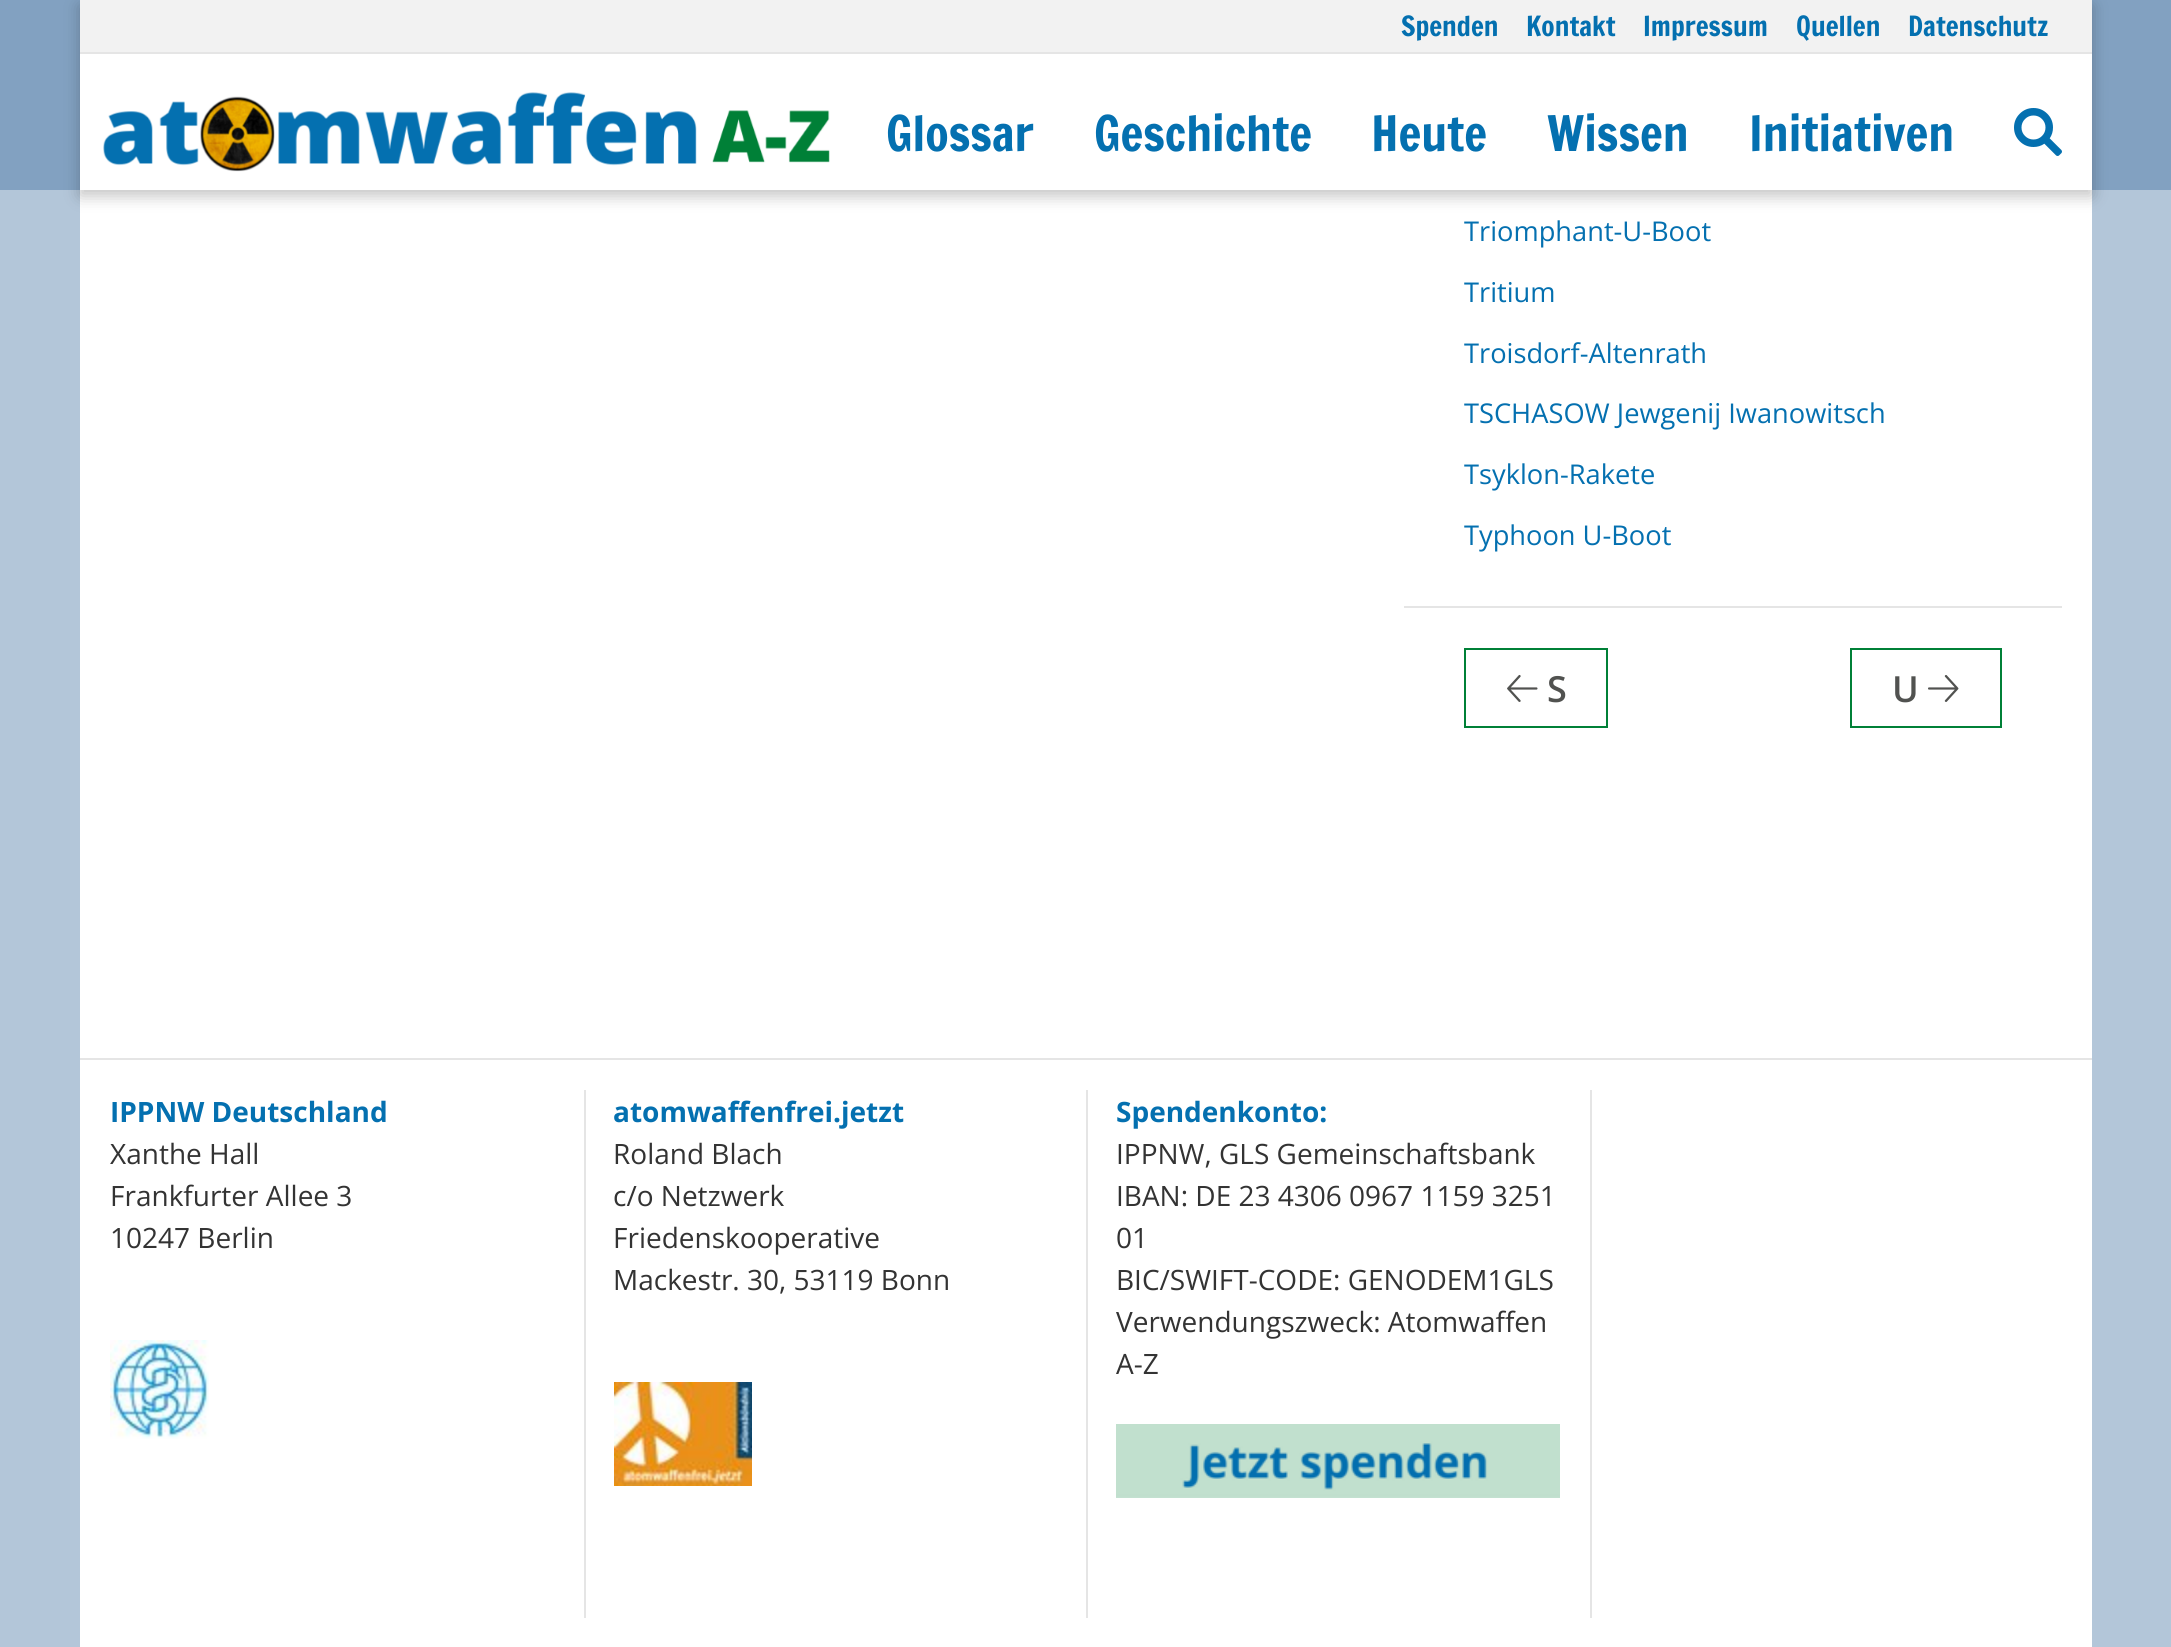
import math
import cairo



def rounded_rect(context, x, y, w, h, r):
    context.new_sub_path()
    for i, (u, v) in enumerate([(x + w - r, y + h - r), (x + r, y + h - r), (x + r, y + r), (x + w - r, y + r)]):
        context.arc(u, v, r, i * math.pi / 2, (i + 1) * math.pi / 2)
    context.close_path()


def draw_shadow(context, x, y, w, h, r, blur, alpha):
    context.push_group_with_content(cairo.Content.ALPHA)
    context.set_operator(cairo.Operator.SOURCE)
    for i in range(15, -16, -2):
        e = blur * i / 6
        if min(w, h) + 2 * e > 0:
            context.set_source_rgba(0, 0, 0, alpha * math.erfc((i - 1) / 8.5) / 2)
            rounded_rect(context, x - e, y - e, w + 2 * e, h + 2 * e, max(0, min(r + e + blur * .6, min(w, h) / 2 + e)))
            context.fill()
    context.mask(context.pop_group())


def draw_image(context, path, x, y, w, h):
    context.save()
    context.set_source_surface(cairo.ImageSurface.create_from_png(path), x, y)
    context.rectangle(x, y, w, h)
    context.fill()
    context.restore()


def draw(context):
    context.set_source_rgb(179 / 255, 198 / 255, 217 / 255)
    context.paint()
    context.set_source_rgb(130 / 255, 161 / 255, 193 / 255)
    context.rectangle(0, 0, 2171, 190)
    context.fill()
    context.set_source_rgb(1, 1, 1)
    context.rectangle(80, 190, 2012, 868)
    context.fill()
    context.set_source_rgb(0, 0, 0)
    draw_shadow(context, 80, 6, 2012, 190, 0, 8, 0.24)
    context.set_source_rgb(1, 1, 1)
    context.rectangle(80, 54, 2012, 136)
    context.fill()
    context.set_source_rgb(242 / 255, 242 / 255, 242 / 255)
    context.rectangle(80, 0, 2012, 52)
    context.fill()
    context.set_source_rgb(229 / 255, 229 / 255, 229 / 255)
    context.rectangle(80, 52, 2012, 2)
    context.fill()
    draw_image(context, "images/1.png", 103, 92, 727, 80)
    draw_image(context, "images/2.png", 2014, 108, 48, 48)
    context.rectangle(1404, 606, 658, 2)
    context.fill()
    context.rectangle(1465, 649, 142, 78)
    context.set_source_rgb(0, 128 / 255, 55 / 255)
    context.stroke()
    draw_image(context, "images/3.png", 1507, 674, 31, 28)
    context.rectangle(1851, 649, 150, 78)
    context.stroke()
    draw_image(context, "images/4.png", 1928, 675, 31, 27)
    context.set_source_rgb(1, 1, 1)
    context.rectangle(80, 1060, 2012, 587)
    context.fill()
    context.set_source_rgb(229 / 255, 229 / 255, 229 / 255)
    context.rectangle(80, 1058, 2012, 2)
    context.fill()
    draw_image(context, "images/5.png", 110, 1340, 99, 99)
    context.rectangle(584, 1090, 2, 528)
    context.fill()
    draw_image(context, "images/6.png", 614, 1382, 138, 104)
    context.rectangle(1086, 1090, 2, 528)
    context.fill()
    draw_image(context, "images/7.png", 1116, 1424, 444, 74)
    context.rectangle(1590, 1090, 2, 528)
    context.fill()
    context.select_font_face("Francois One")
    context.set_font_size(27.25)
    context.set_source_rgb(4 / 255, 112 / 255, 176 / 255)
    context.move_to(1401, 36)
    context.show_text("Spenden")
    context.move_to(1526, 36)
    context.show_text("Kontakt")
    context.move_to(1643, 36)
    context.show_text("Impressum")
    context.move_to(1796, 36)
    context.show_text("Quellen")
    context.move_to(1908, 36)
    context.show_text("Datenschutz")
    context.set_font_size(48)
    context.move_to(886, 151)
    context.show_text("Glossar")
    context.move_to(1094, 151)
    context.show_text("Geschichte")
    context.move_to(1371, 151)
    context.show_text("Heute")
    context.move_to(1547, 151)
    context.show_text("Wissen")
    context.move_to(1749, 151)
    context.show_text("Initiativen")
    context.select_font_face("Open Sans")
    context.set_font_size(27.25)
    context.move_to(1464, 241)
    context.show_text("Triomphant-U-Boot")
    context.move_to(1464, 302)
    context.show_text("Tritium")
    context.move_to(1464, 363)
    context.show_text("Troisdorf-Altenrath")
    context.move_to(1464, 423)
    context.show_text("TSCHASOW Jewgenij Iwanowitsch")
    context.move_to(1464, 484)
    context.show_text("Tsyklon-Rakete")
    context.move_to(1464, 545)
    context.show_text("Typhoon U-Boot")
    context.select_font_face("Open Sans SemiBold")
    context.set_font_size(36)
    context.set_source_rgb(81 / 255, 82 / 255, 80 / 255)
    context.move_to(1547, 702)
    context.show_text("S")
    context.move_to(1892, 702)
    context.show_text("U")
    context.select_font_face("Open Sans", cairo.FontSlant.NORMAL, cairo.FontWeight.BOLD)
    context.set_font_size(28)
    context.set_source_rgb(4 / 255, 112 / 255, 176 / 255)
    context.move_to(110, 1122)
    context.show_text("IPPNW Deutschland")
    context.select_font_face("Open Sans")
    context.set_source_rgb(51 / 255, 51 / 255, 51 / 255)
    context.move_to(110, 1164)
    context.show_text("Xanthe Hall")
    context.move_to(110, 1206)
    context.show_text("Frankfurter Allee 3")
    context.move_to(110, 1248)
    context.show_text("10247 Berlin")
    context.select_font_face("Open Sans", cairo.FontSlant.NORMAL, cairo.FontWeight.BOLD)
    context.set_source_rgb(4 / 255, 112 / 255, 176 / 255)
    context.move_to(613, 1122)
    context.show_text("atomwaffenfrei.jetzt")
    context.select_font_face("Open Sans")
    context.set_source_rgb(51 / 255, 51 / 255, 51 / 255)
    context.move_to(613, 1164)
    context.show_text("Roland Blach")
    context.move_to(613, 1206)
    context.show_text("c/o Netzwerk")
    context.move_to(613, 1248)
    context.show_text("Friedenskooperative")
    context.move_to(613, 1290)
    context.show_text("Mackestr. 30, 53119 Bonn")
    context.select_font_face("Open Sans", cairo.FontSlant.NORMAL, cairo.FontWeight.BOLD)
    context.set_source_rgb(4 / 255, 112 / 255, 176 / 255)
    context.move_to(1116, 1122)
    context.show_text("Spendenkonto:")
    context.select_font_face("Open Sans")
    context.set_source_rgb(51 / 255, 51 / 255, 51 / 255)
    context.move_to(1116, 1164)
    context.show_text("IPPNW, GLS Gemeinschaftsbank")
    context.move_to(1116, 1206)
    context.show_text("IBAN: DE 23 4306 0967 1159 3251")
    context.move_to(1116, 1248)
    context.show_text("01")
    context.move_to(1116, 1290)
    context.show_text("BIC/SWIFT-CODE: GENODEM1GLS")
    context.move_to(1116, 1332)
    context.show_text("Verwendungszweck: Atomwaffen")
    context.move_to(1116, 1374)
    context.show_text("A-Z")


surface = cairo.ImageSurface(cairo.Format.RGB24, 2171, 1647)
context = cairo.Context(surface)
options = cairo.FontOptions()
options.set_hint_metrics(cairo.HintMetrics.OFF)
options.set_hint_style(cairo.HintStyle.NONE)
context.set_font_options(options)
context.set_miter_limit(4)
draw(context)
surface.write_to_png("out.png")
